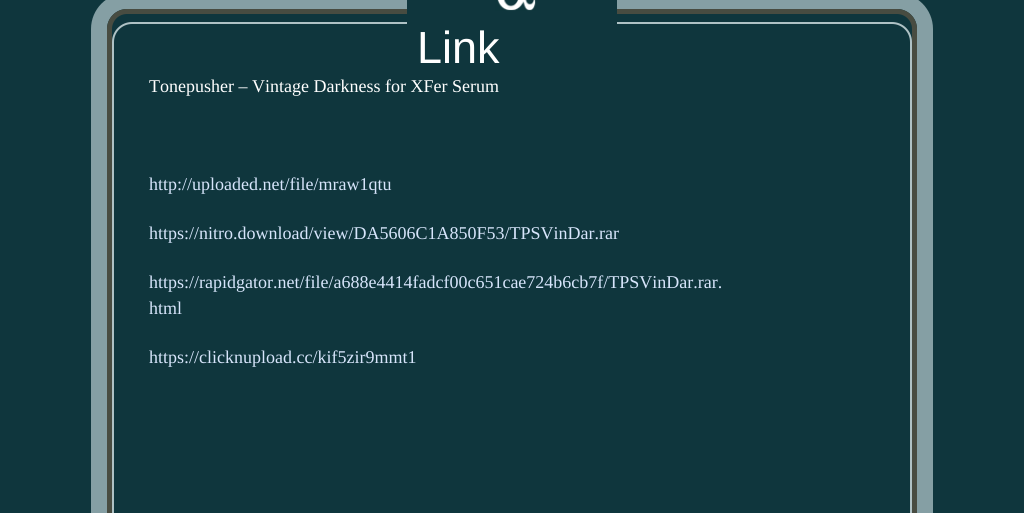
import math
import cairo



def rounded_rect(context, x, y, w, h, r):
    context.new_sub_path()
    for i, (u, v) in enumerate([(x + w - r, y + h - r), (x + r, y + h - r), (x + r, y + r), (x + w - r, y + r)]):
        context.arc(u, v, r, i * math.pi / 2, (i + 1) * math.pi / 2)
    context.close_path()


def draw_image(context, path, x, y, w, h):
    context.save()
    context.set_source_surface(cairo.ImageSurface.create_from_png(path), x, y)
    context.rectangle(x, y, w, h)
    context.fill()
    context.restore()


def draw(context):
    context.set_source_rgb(15 / 255, 54 / 255, 61 / 255)
    context.paint()
    rounded_rect(context, 99, 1, 826, 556, 28)
    context.set_source_rgb(133 / 255, 159 / 255, 164 / 255)
    context.set_line_width(16)
    context.stroke()
    rounded_rect(context, 109.5, 11.5, 805, 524, 17.5)
    context.set_source_rgb(72 / 255, 76 / 255, 65 / 255)
    context.set_line_width(5)
    context.stroke()
    rounded_rect(context, 113, 23, 798, 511, 19)
    context.set_source_rgb(175 / 255, 194 / 255, 197 / 255)
    context.set_line_width(2)
    context.stroke()
    context.set_source_rgb(15 / 255, 54 / 255, 61 / 255)
    context.rectangle(407, 0, 210, 24)
    context.fill()
    draw_image(context, "images/1.png", 495, 0, 41, 11)
    context.select_font_face("Liberation Sans")
    context.set_font_size(45)
    context.set_source_rgb(1, 1, 1)
    context.move_to(417, 63)
    context.show_text("Link")
    context.select_font_face("Liberation Serif")
    context.set_font_size(18)
    context.move_to(149, 92)
    context.show_text("Tonepusher – Vintage Darkness for XFer Serum")
    context.set_source_rgb(215 / 255, 229 / 255, 251 / 255)
    context.move_to(149, 190)
    context.show_text("http://uploaded.net/file/mraw1qtu")
    context.move_to(149, 239)
    context.show_text("https://nitro.download/view/DA5606C1A850F53/TPSVinDar.rar")
    context.move_to(149, 288)
    context.show_text("https://rapidgator.net/file/a688e4414fadcf00c651cae724b6cb7f/TPSVinDar.rar.")
    context.move_to(149, 314)
    context.show_text("html")
    context.move_to(149, 363)
    context.show_text("https://clicknupload.cc/kif5zir9mmt1")


surface = cairo.ImageSurface(cairo.Format.RGB24, 1024, 513)
context = cairo.Context(surface)
options = cairo.FontOptions()
options.set_hint_metrics(cairo.HintMetrics.OFF)
options.set_hint_style(cairo.HintStyle.NONE)
context.set_font_options(options)
context.set_miter_limit(4)
draw(context)
surface.write_to_png("out.png")
